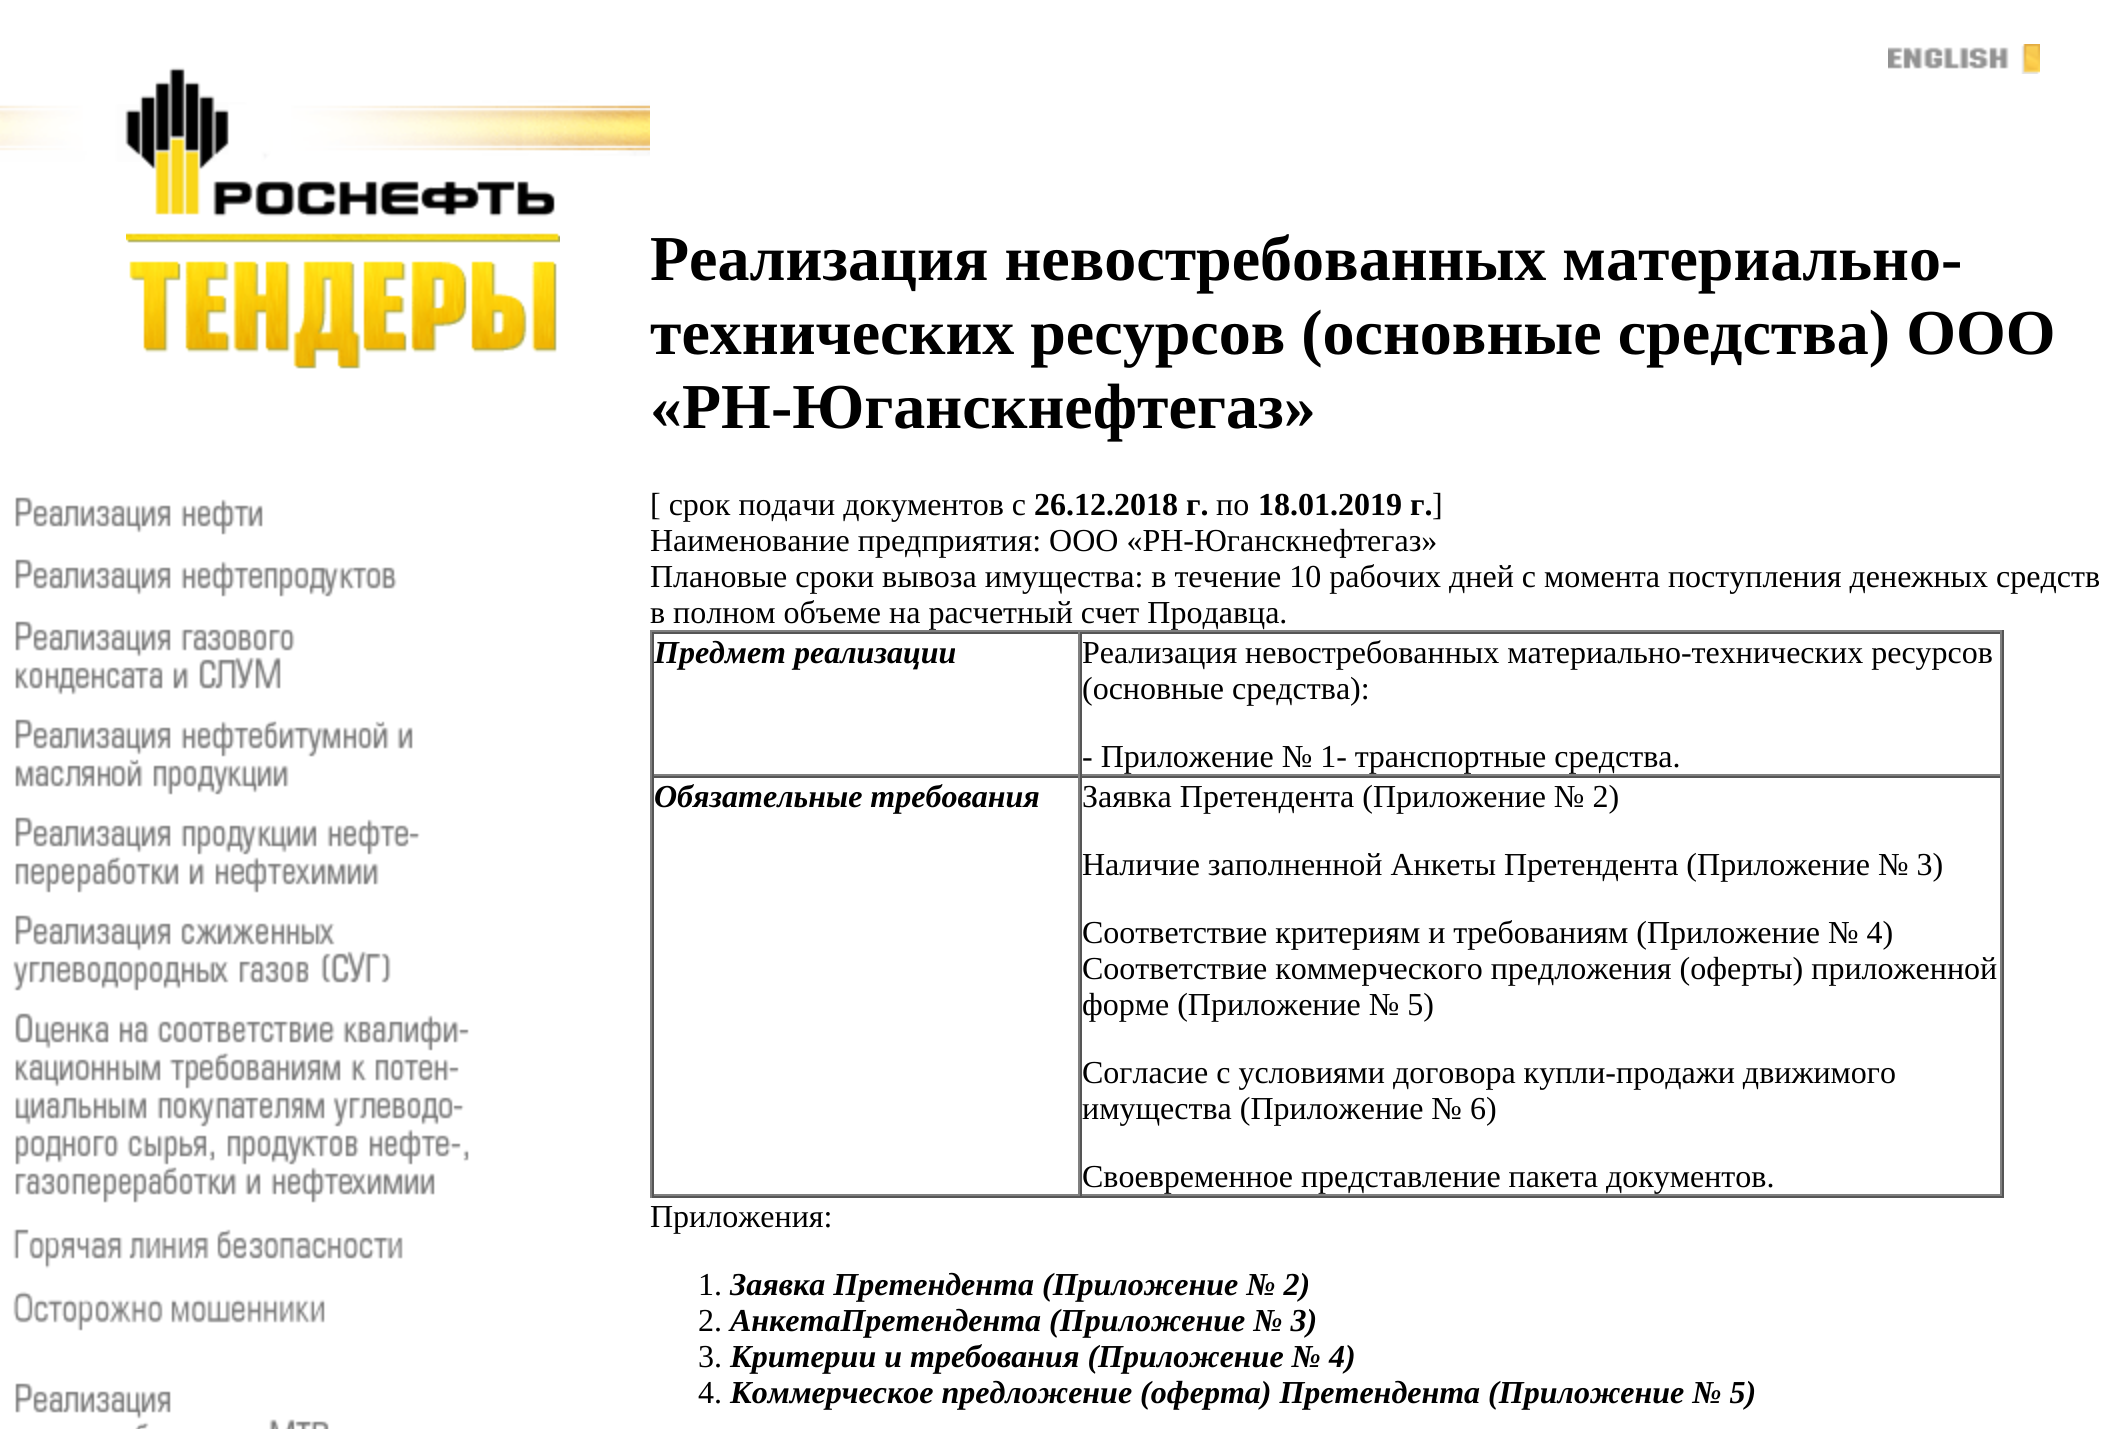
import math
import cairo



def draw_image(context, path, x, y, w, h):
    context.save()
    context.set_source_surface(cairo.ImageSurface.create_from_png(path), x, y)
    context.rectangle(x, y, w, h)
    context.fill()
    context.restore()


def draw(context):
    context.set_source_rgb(1, 1, 1)
    context.paint()
    draw_image(context, "images/1.png", 1888, 44, 152, 30)
    draw_image(context, "images/2.png", 0, 67, 650, 150)
    draw_image(context, "images/3.png", 126, 233, 434, 136)
    draw_image(context, "images/4.png", 15, 497, 248, 38)
    draw_image(context, "images/5.png", 15, 559, 382, 38)
    draw_image(context, "images/6.png", 15, 621, 280, 74)
    draw_image(context, "images/7.png", 15, 719, 398, 76)
    draw_image(context, "images/8.png", 15, 817, 405, 76)
    draw_image(context, "images/9.png", 13, 915, 378, 76)
    draw_image(context, "images/10.png", 15, 1013, 454, 190)
    draw_image(context, "images/11.png", 13, 1229, 390, 40)
    draw_image(context, "images/12.png", 13, 1291, 312, 40)
    draw_image(context, "images/13.png", 15, 1383, 314, 46)
    context.set_source_rgb(128 / 255, 128 / 255, 128 / 255)
    context.rectangle(650, 630, 1354, 2)
    context.fill()
    context.set_source_rgb(85 / 255, 85 / 255, 85 / 255)
    context.rectangle(2002, 630, 2, 568)
    context.fill()
    context.rectangle(650, 1196, 1354, 2)
    context.fill()
    context.set_source_rgb(128 / 255, 128 / 255, 128 / 255)
    context.rectangle(650, 630, 2, 568)
    context.fill()
    context.set_source_rgb(85 / 255, 85 / 255, 85 / 255)
    context.rectangle(652, 632, 1350, 2)
    context.fill()
    context.set_source_rgb(128 / 255, 128 / 255, 128 / 255)
    context.rectangle(1078, 632, 2, 144)
    context.fill()
    context.rectangle(652, 774, 428, 2)
    context.fill()
    context.set_source_rgb(85 / 255, 85 / 255, 85 / 255)
    context.rectangle(652, 632, 2, 144)
    context.fill()
    context.set_source_rgb(128 / 255, 128 / 255, 128 / 255)
    context.rectangle(2000, 632, 2, 144)
    context.fill()
    context.rectangle(1080, 774, 922, 2)
    context.fill()
    context.set_source_rgb(85 / 255, 85 / 255, 85 / 255)
    context.rectangle(1080, 632, 2, 144)
    context.fill()
    context.rectangle(652, 776, 1350, 2)
    context.fill()
    context.set_source_rgb(128 / 255, 128 / 255, 128 / 255)
    context.rectangle(1078, 776, 2, 420)
    context.fill()
    context.rectangle(652, 1194, 428, 2)
    context.fill()
    context.set_source_rgb(85 / 255, 85 / 255, 85 / 255)
    context.rectangle(652, 776, 2, 420)
    context.fill()
    context.set_source_rgb(128 / 255, 128 / 255, 128 / 255)
    context.rectangle(2000, 776, 2, 420)
    context.fill()
    context.rectangle(1080, 1194, 922, 2)
    context.fill()
    context.set_source_rgb(85 / 255, 85 / 255, 85 / 255)
    context.rectangle(1080, 776, 2, 420)
    context.fill()
    context.select_font_face("Liberation Serif", cairo.FontSlant.NORMAL, cairo.FontWeight.BOLD)
    context.set_font_size(64)
    context.set_source_rgb(0, 0, 0)
    context.move_to(650, 280)
    context.show_text("Реализация невостребованных материально-")
    context.move_to(650, 354)
    context.show_text("технических ресурсов (основные средства) ООО")
    context.move_to(650, 428)
    context.show_text("«РН-Юганскнефтегаз»")
    context.select_font_face("Liberation Serif")
    context.set_font_size(32)
    context.move_to(650, 515)
    context.show_text("[ срок подачи документов с")
    context.select_font_face("Liberation Serif", cairo.FontSlant.NORMAL, cairo.FontWeight.BOLD)
    context.move_to(1034, 515)
    context.show_text("26.12.2018 г.")
    context.select_font_face("Liberation Serif")
    context.move_to(1216, 515)
    context.show_text("по")
    context.select_font_face("Liberation Serif", cairo.FontSlant.NORMAL, cairo.FontWeight.BOLD)
    context.move_to(1258, 515)
    context.show_text("18.01.2019 г.")
    context.select_font_face("Liberation Serif")
    context.move_to(1432, 515)
    context.show_text("]")
    context.move_to(650, 551)
    context.show_text("Наименование предприятия: ООО «РН-Юганскнефтегаз»")
    context.move_to(650, 587)
    context.show_text("Плановые сроки вывоза имущества: в течение 10 рабочих дней с момента поступления денежных средств")
    context.move_to(650, 623)
    context.show_text("в полном объеме на расчетный счет Продавца.")
    context.select_font_face("Liberation Serif", cairo.FontSlant.ITALIC, cairo.FontWeight.BOLD)
    context.move_to(654, 663)
    context.show_text("Предмет реализации")
    context.select_font_face("Liberation Serif")
    context.move_to(1082, 663)
    context.show_text("Реализация невостребованных материально-технических ресурсов")
    context.move_to(1082, 699)
    context.show_text("(основные средства):")
    context.move_to(1082, 767)
    context.show_text("- Приложение № 1- транспортные средства.")
    context.select_font_face("Liberation Serif", cairo.FontSlant.ITALIC, cairo.FontWeight.BOLD)
    context.move_to(654, 807)
    context.show_text("Обязательные требования")
    context.select_font_face("Liberation Serif")
    context.move_to(1082, 807)
    context.show_text("Заявка Претендента (Приложение № 2)")
    context.move_to(1082, 875)
    context.show_text("Наличие заполненной Анкеты Претендента (Приложение № 3)")
    context.move_to(1082, 943)
    context.show_text("Соответствие критериям и требованиям (Приложение № 4)")
    context.move_to(1082, 979)
    context.show_text("Соответствие коммерческого предложения (оферты) приложенной")
    context.move_to(1082, 1015)
    context.show_text("форме (Приложение № 5)")
    context.move_to(1082, 1083)
    context.show_text("Согласие с условиями договора купли-продажи движимого")
    context.move_to(1082, 1119)
    context.show_text("имущества (Приложение № 6)")
    context.move_to(1082, 1187)
    context.show_text("Своевременное представление пакета документов.")
    context.move_to(650, 1227)
    context.show_text("Приложения:")
    context.move_to(698, 1295)
    context.show_text("1.")
    context.select_font_face("Liberation Serif", cairo.FontSlant.ITALIC, cairo.FontWeight.BOLD)
    context.move_to(730, 1295)
    context.show_text("Заявка Претендента (Приложение № 2)")
    context.select_font_face("Liberation Serif")
    context.move_to(698, 1331)
    context.show_text("2.")
    context.select_font_face("Liberation Serif", cairo.FontSlant.ITALIC, cairo.FontWeight.BOLD)
    context.move_to(730, 1331)
    context.show_text("АнкетаПретендента (Приложение № 3)")
    context.select_font_face("Liberation Serif")
    context.move_to(698, 1367)
    context.show_text("3.")
    context.select_font_face("Liberation Serif", cairo.FontSlant.ITALIC, cairo.FontWeight.BOLD)
    context.move_to(730, 1367)
    context.show_text("Критерии и требования (Приложение № 4)")
    context.select_font_face("Liberation Serif")
    context.move_to(698, 1403)
    context.show_text("4.")
    context.select_font_face("Liberation Serif", cairo.FontSlant.ITALIC, cairo.FontWeight.BOLD)
    context.move_to(730, 1403)
    context.show_text("Коммерческое предложение (оферта) Претендента (Приложение № 5)")


surface = cairo.ImageSurface(cairo.Format.RGB24, 2111, 1429)
context = cairo.Context(surface)
options = cairo.FontOptions()
options.set_hint_metrics(cairo.HintMetrics.OFF)
options.set_hint_style(cairo.HintStyle.NONE)
context.set_font_options(options)
context.set_miter_limit(4)
draw(context)
surface.write_to_png("out.png")
